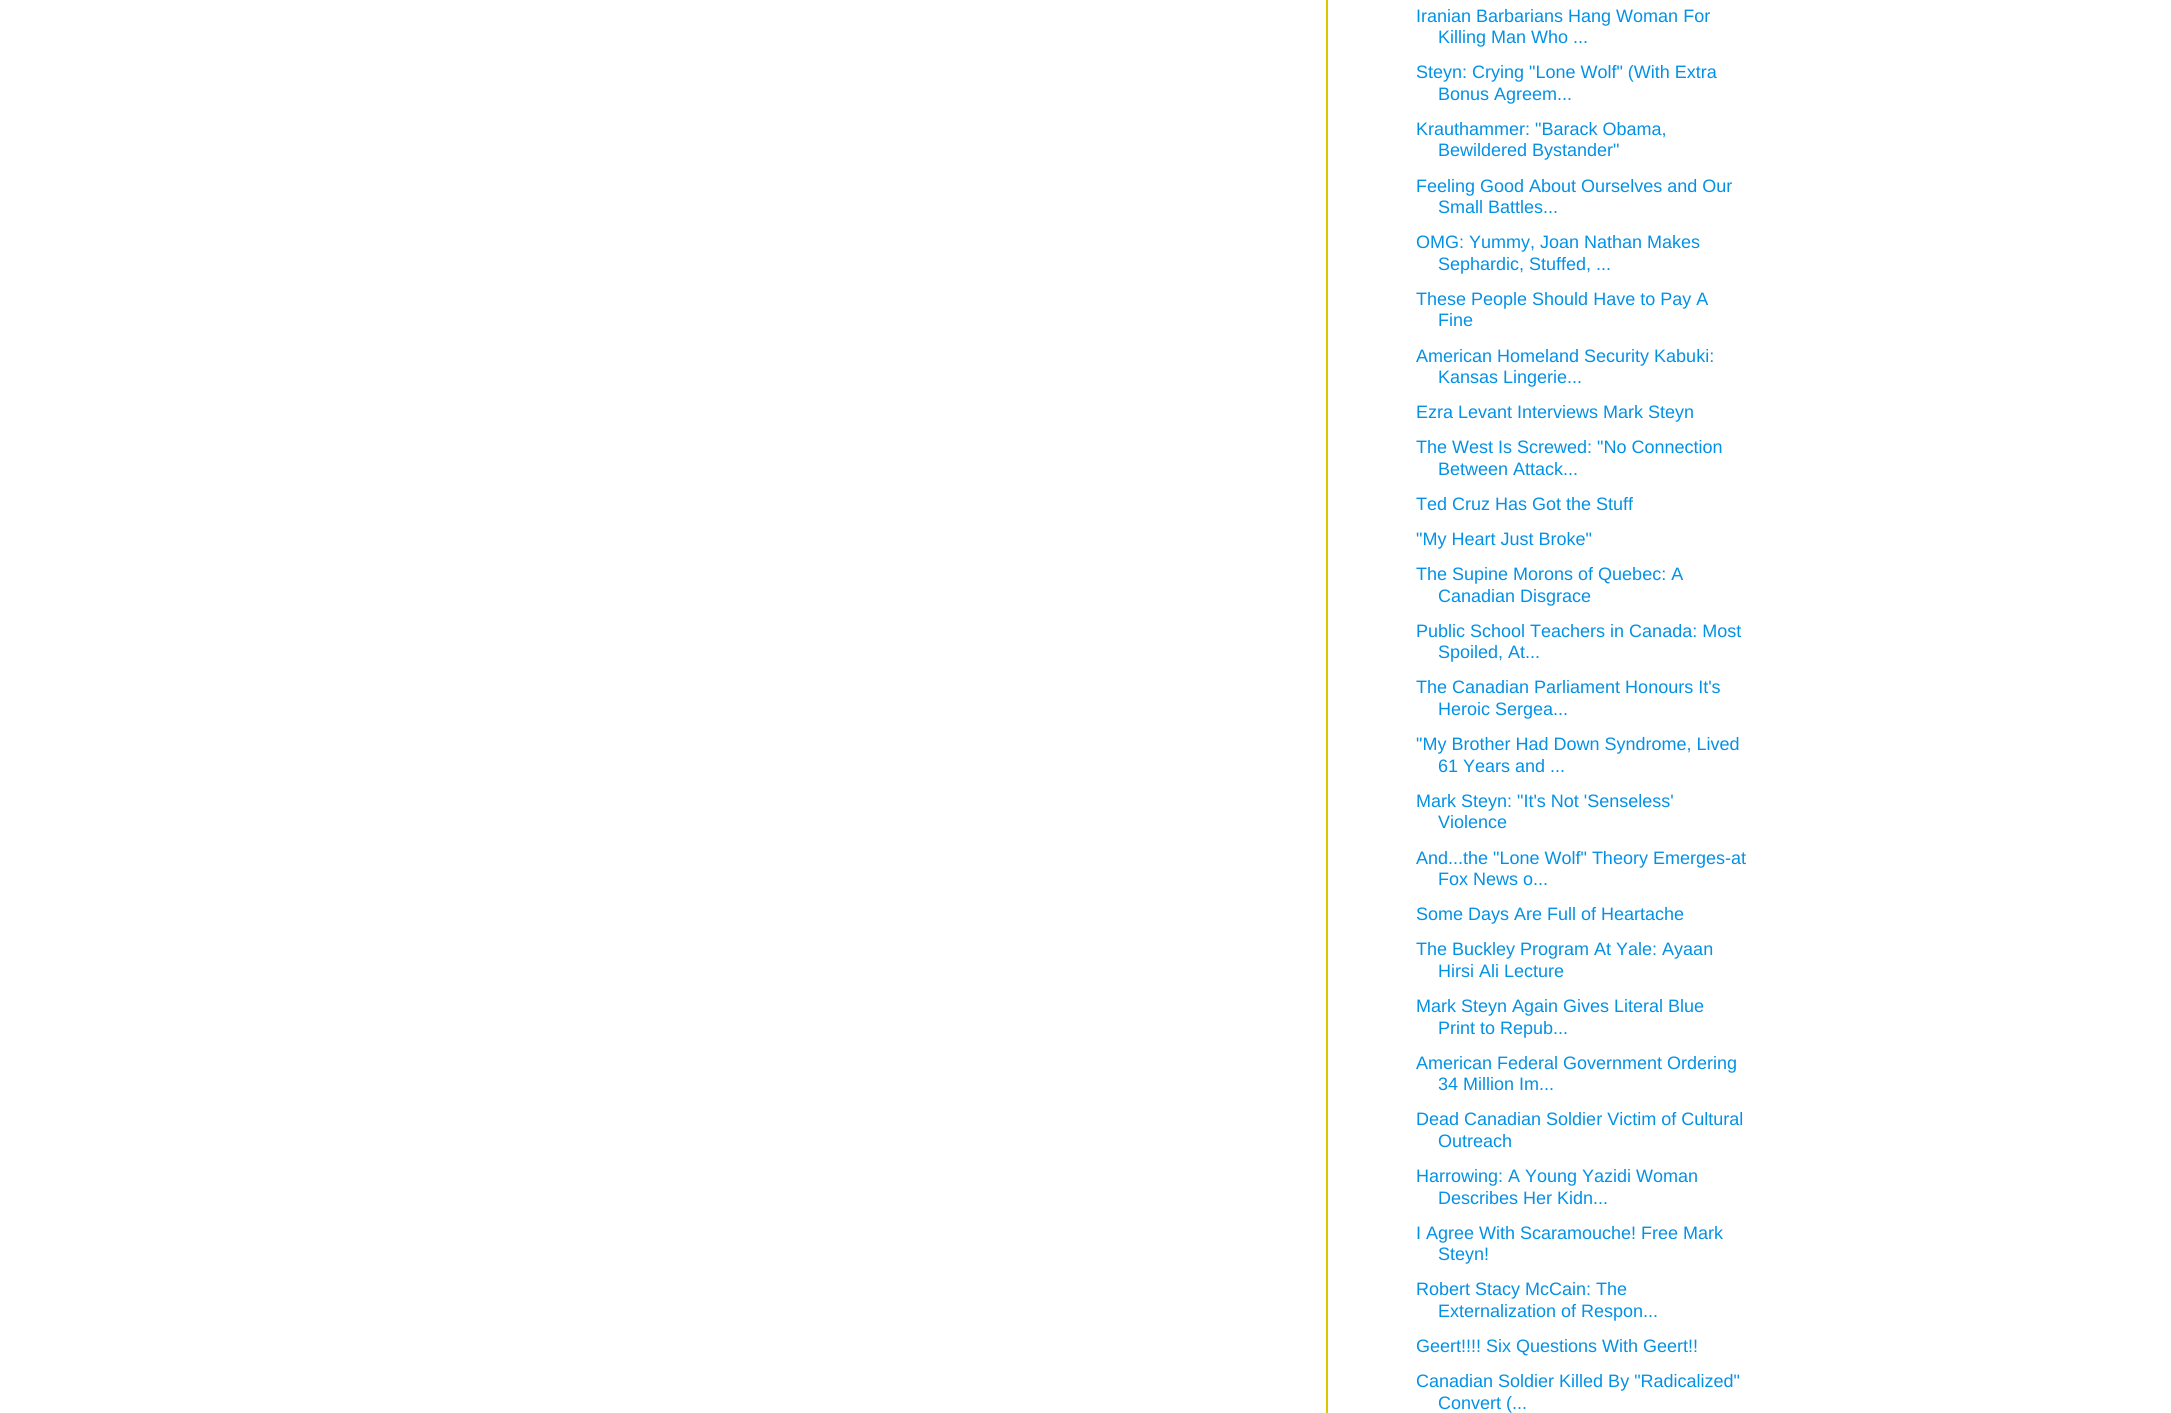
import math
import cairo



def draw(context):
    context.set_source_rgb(1, 1, 1)
    context.paint()
    context.set_source_rgb(221 / 255, 197 / 255, 0)
    context.rectangle(1326, 0, 2, 1413)
    context.fill()
    context.select_font_face("Liberation Sans")
    context.set_font_size(18)
    context.set_source_rgb(3 / 255, 145 / 255, 229 / 255)
    context.move_to(1416, 22)
    context.show_text("Iranian Barbarians Hang Woman For")
    context.move_to(1438, 43)
    context.show_text("Killing Man Who ...")
    context.move_to(1416, 78)
    context.show_text("Steyn: Crying \"Lone Wolf\" (With Extra")
    context.move_to(1438, 100)
    context.show_text("Bonus Agreem...")
    context.move_to(1416, 135)
    context.show_text("Krauthammer: \"Barack Obama,")
    context.move_to(1438, 156)
    context.show_text("Bewildered Bystander\"")
    context.move_to(1416, 192)
    context.show_text("Feeling Good About Ourselves and Our")
    context.move_to(1438, 213)
    context.show_text("Small Battles...")
    context.move_to(1416, 248)
    context.show_text("OMG: Yummy, Joan Nathan Makes")
    context.move_to(1438, 270)
    context.show_text("Sephardic, Stuffed, ...")
    context.move_to(1416, 305)
    context.show_text("These People Should Have to Pay A")
    context.move_to(1438, 326)
    context.show_text("Fine")
    context.move_to(1416, 362)
    context.show_text("American Homeland Security Kabuki:")
    context.move_to(1438, 383)
    context.show_text("Kansas Lingerie...")
    context.move_to(1416, 418)
    context.show_text("Ezra Levant Interviews Mark Steyn")
    context.move_to(1416, 453)
    context.show_text("The West Is Screwed: \"No Connection")
    context.move_to(1438, 475)
    context.show_text("Between Attack...")
    context.move_to(1416, 510)
    context.show_text("Ted Cruz Has Got the Stuff")
    context.move_to(1416, 545)
    context.show_text("\"My Heart Just Broke\"")
    context.move_to(1416, 580)
    context.show_text("The Supine Morons of Quebec: A")
    context.move_to(1438, 602)
    context.show_text("Canadian Disgrace")
    context.move_to(1416, 637)
    context.show_text("Public School Teachers in Canada: Most")
    context.move_to(1438, 658)
    context.show_text("Spoiled, At...")
    context.move_to(1416, 693)
    context.show_text("The Canadian Parliament Honours It's")
    context.move_to(1438, 715)
    context.show_text("Heroic Sergea...")
    context.move_to(1416, 750)
    context.show_text("\"My Brother Had Down Syndrome, Lived")
    context.move_to(1438, 772)
    context.show_text("61 Years and ...")
    context.move_to(1416, 807)
    context.show_text("Mark Steyn: \"It's Not 'Senseless'")
    context.move_to(1438, 828)
    context.show_text("Violence")
    context.move_to(1416, 864)
    context.show_text("And...the \"Lone Wolf\" Theory Emerges-at")
    context.move_to(1438, 885)
    context.show_text("Fox News o...")
    context.move_to(1416, 920)
    context.show_text("Some Days Are Full of Heartache")
    context.move_to(1416, 955)
    context.show_text("The Buckley Program At Yale: Ayaan")
    context.move_to(1438, 977)
    context.show_text("Hirsi Ali Lecture")
    context.move_to(1416, 1012)
    context.show_text("Mark Steyn Again Gives Literal Blue")
    context.move_to(1438, 1034)
    context.show_text("Print to Repub...")
    context.move_to(1416, 1069)
    context.show_text("American Federal Government Ordering")
    context.move_to(1438, 1090)
    context.show_text("34 Million Im...")
    context.move_to(1416, 1125)
    context.show_text("Dead Canadian Soldier Victim of Cultural")
    context.move_to(1438, 1147)
    context.show_text("Outreach")
    context.move_to(1416, 1182)
    context.show_text("Harrowing: A Young Yazidi Woman")
    context.move_to(1438, 1204)
    context.show_text("Describes Her Kidn...")
    context.move_to(1416, 1239)
    context.show_text("I Agree With Scaramouche! Free Mark")
    context.move_to(1438, 1260)
    context.show_text("Steyn!")
    context.move_to(1416, 1295)
    context.show_text("Robert Stacy McCain: The")
    context.move_to(1438, 1317)
    context.show_text("Externalization of Respon...")
    context.move_to(1416, 1352)
    context.show_text("Geert!!!! Six Questions With Geert!!")
    context.move_to(1416, 1387)
    context.show_text("Canadian Soldier Killed By \"Radicalized\"")
    context.move_to(1438, 1409)
    context.show_text("Convert (...")


surface = cairo.ImageSurface(cairo.Format.RGB24, 2171, 1413)
context = cairo.Context(surface)
options = cairo.FontOptions()
options.set_hint_metrics(cairo.HintMetrics.OFF)
options.set_hint_style(cairo.HintStyle.NONE)
context.set_font_options(options)
context.set_miter_limit(4)
draw(context)
surface.write_to_png("out.png")
